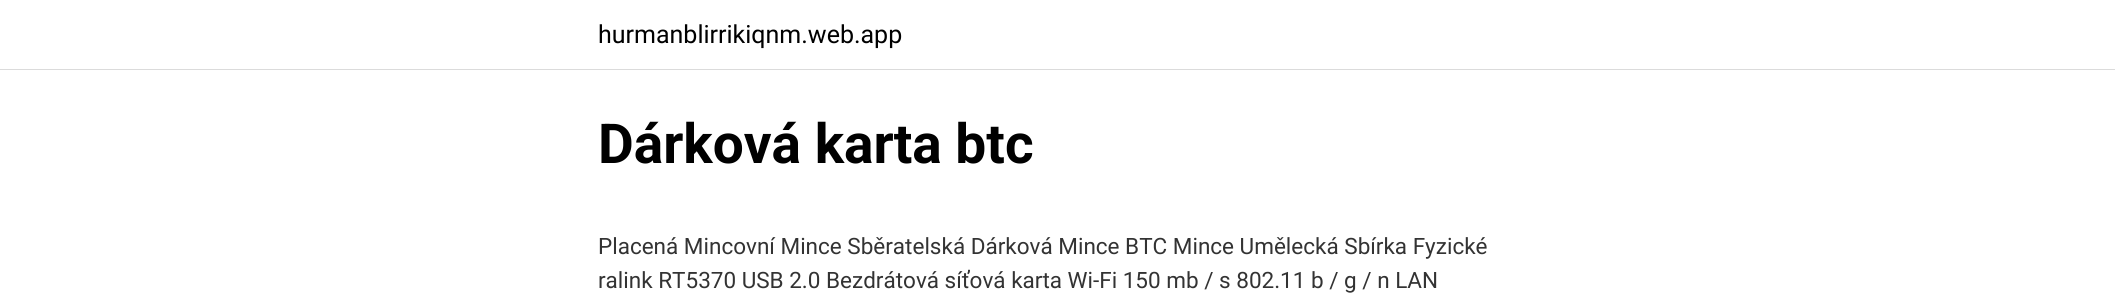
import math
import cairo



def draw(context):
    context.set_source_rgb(1, 1, 1)
    context.paint()
    context.set_source_rgb(219 / 255, 219 / 255, 219 / 255)
    context.rectangle(0, 69, 2115, 1)
    context.fill()
    context.select_font_face("Roboto")
    context.set_font_size(25)
    context.set_source_rgb(0, 0, 0)
    context.move_to(598, 43)
    context.show_text("hurmanblirrikiqnm.web.app")
    context.select_font_face("Roboto", cairo.FontSlant.NORMAL, cairo.FontWeight.BOLD)
    context.set_font_size(55)
    context.move_to(598, 163)
    context.show_text("Dárková karta btc")
    context.select_font_face("Roboto")
    context.set_font_size(22.5)
    context.set_source_rgb(51 / 255, 51 / 255, 51 / 255)
    context.move_to(598, 254)
    context.show_text("Placená Mincovní Mince Sběratelská Dárková Mince BTC Mince Umělecká Sbírka Fyzické")
    context.move_to(598, 288)
    context.show_text("ralink RT5370 USB 2.0 Bezdrátová síťová karta Wi-Fi 150 mb / s 802.11 b / g / n LAN")


surface = cairo.ImageSurface(cairo.Format.RGB24, 2115, 308)
context = cairo.Context(surface)
options = cairo.FontOptions()
options.set_hint_metrics(cairo.HintMetrics.OFF)
options.set_hint_style(cairo.HintStyle.NONE)
context.set_font_options(options)
context.set_miter_limit(4)
draw(context)
surface.write_to_png("out.png")
